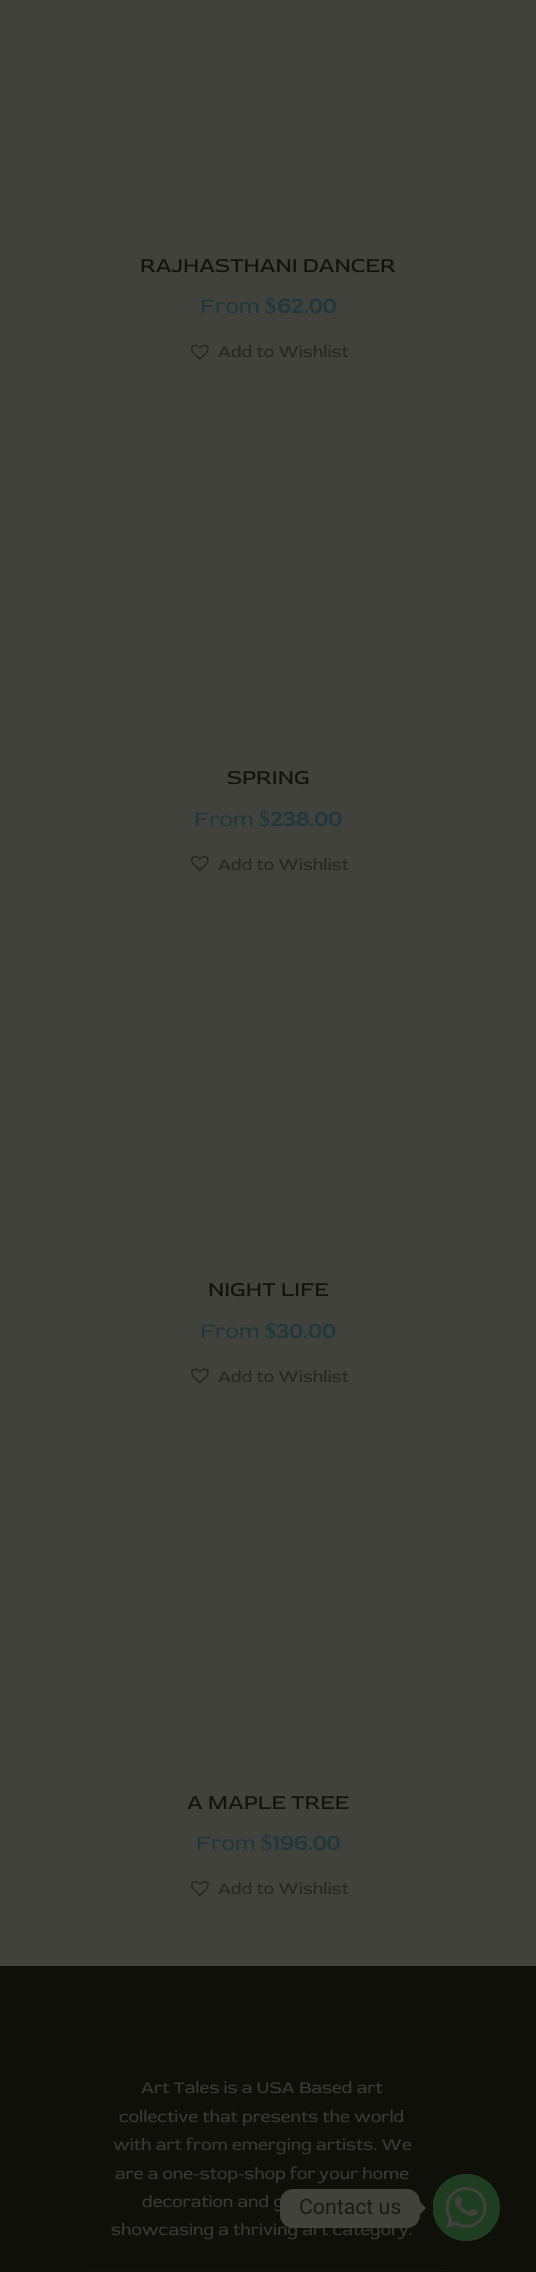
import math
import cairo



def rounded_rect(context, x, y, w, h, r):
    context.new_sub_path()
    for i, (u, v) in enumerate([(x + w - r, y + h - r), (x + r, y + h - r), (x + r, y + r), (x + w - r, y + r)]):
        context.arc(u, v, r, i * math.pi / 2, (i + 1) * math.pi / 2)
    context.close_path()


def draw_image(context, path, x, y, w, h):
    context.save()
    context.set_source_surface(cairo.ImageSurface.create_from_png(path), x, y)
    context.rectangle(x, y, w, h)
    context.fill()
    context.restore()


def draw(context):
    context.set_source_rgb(66 / 255, 66 / 255, 61 / 255)
    context.paint()
    draw_image(context, "images/1.png", 191, 344, 18, 16)
    draw_image(context, "images/2.png", 191, 856, 18, 16)
    draw_image(context, "images/3.png", 191, 1368, 18, 16)
    draw_image(context, "images/2.png", 191, 1881, 18, 16)
    context.set_source_rgb(16 / 255, 16 / 255, 11 / 255)
    context.rectangle(0, 1966, 536, 306)
    context.fill()
    context.set_source_rgb(25 / 255, 25 / 255, 19 / 255)
    context.rectangle(94, 2270, 350, 1)
    context.fill()
    context.set_source_rgb(66 / 255, 66 / 255, 61 / 255)
    context.new_path()
    context.move_to(420, 2214.5)
    context.line_to(420, 2202)
    context.line_to(426, 2208)
    context.close_path()
    context.fill()
    context.set_source_rgb(30 / 255, 61 / 255, 33 / 255)
    context.arc(466.5, 2207.5, 33.5, 0, 2 * math.pi)
    context.fill()
    draw_image(context, "images/4.png", 433, 2174, 67, 67)
    context.select_font_face("Red Rose")
    context.set_font_size(21.25)
    context.set_source_rgb(18 / 255, 19 / 255, 14 / 255)
    context.move_to(140, 272)
    context.show_text("RAJHASTHANI DANCER")
    context.set_font_size(22.5)
    context.set_source_rgb(33 / 255, 55 / 255, 59 / 255)
    context.move_to(200, 313)
    context.show_text("From")
    context.select_font_face("Liberation Serif", cairo.FontSlant.NORMAL, cairo.FontWeight.BOLD)
    context.move_to(265, 313)
    context.show_text("$")
    context.select_font_face("Red Rose", cairo.FontSlant.NORMAL, cairo.FontWeight.BOLD)
    context.move_to(277, 313)
    context.show_text("62.00")
    context.select_font_face("Red Rose")
    context.set_font_size(17.5)
    context.set_source_rgb(38 / 255, 38 / 255, 34 / 255)
    context.move_to(218, 357)
    context.show_text("Add to Wishlist")
    context.set_font_size(21.25)
    context.set_source_rgb(18 / 255, 19 / 255, 14 / 255)
    context.move_to(227, 784)
    context.show_text("SPRING")
    context.set_font_size(22.5)
    context.set_source_rgb(33 / 255, 55 / 255, 59 / 255)
    context.move_to(194, 826)
    context.show_text("From")
    context.select_font_face("Liberation Serif", cairo.FontSlant.NORMAL, cairo.FontWeight.BOLD)
    context.move_to(259, 826)
    context.show_text("$")
    context.select_font_face("Red Rose", cairo.FontSlant.NORMAL, cairo.FontWeight.BOLD)
    context.move_to(270, 826)
    context.show_text("238.00")
    context.select_font_face("Red Rose")
    context.set_font_size(17.5)
    context.set_source_rgb(38 / 255, 38 / 255, 34 / 255)
    context.move_to(218, 870)
    context.show_text("Add to Wishlist")
    context.set_font_size(21.25)
    context.set_source_rgb(18 / 255, 19 / 255, 14 / 255)
    context.move_to(208, 1296)
    context.show_text("NIGHT LIFE")
    context.set_font_size(22.5)
    context.set_source_rgb(33 / 255, 55 / 255, 59 / 255)
    context.move_to(200, 1338)
    context.show_text("From")
    context.select_font_face("Liberation Serif", cairo.FontSlant.NORMAL, cairo.FontWeight.BOLD)
    context.move_to(265, 1338)
    context.show_text("$")
    context.select_font_face("Red Rose", cairo.FontSlant.NORMAL, cairo.FontWeight.BOLD)
    context.move_to(276, 1338)
    context.show_text("30.00")
    context.select_font_face("Red Rose")
    context.set_font_size(17.5)
    context.set_source_rgb(38 / 255, 38 / 255, 34 / 255)
    context.move_to(218, 1382)
    context.show_text("Add to Wishlist")
    context.set_font_size(21.25)
    context.set_source_rgb(18 / 255, 19 / 255, 14 / 255)
    context.move_to(187, 1809)
    context.show_text("A MAPLE TREE")
    context.set_font_size(22.5)
    context.set_source_rgb(33 / 255, 55 / 255, 59 / 255)
    context.move_to(196, 1850)
    context.show_text("From")
    context.select_font_face("Liberation Serif", cairo.FontSlant.NORMAL, cairo.FontWeight.BOLD)
    context.move_to(261, 1850)
    context.show_text("$")
    context.select_font_face("Red Rose", cairo.FontSlant.NORMAL, cairo.FontWeight.BOLD)
    context.move_to(272, 1850)
    context.show_text("196.00")
    context.select_font_face("Red Rose")
    context.set_font_size(17.5)
    context.set_source_rgb(38 / 255, 38 / 255, 34 / 255)
    context.move_to(218, 1894)
    context.show_text("Add to Wishlist")
    context.set_source_rgb(57 / 255, 57 / 255, 52 / 255)
    context.move_to(141, 2093)
    context.show_text("Art Tales is a USA Based art")
    context.move_to(119, 2122)
    context.show_text("collective that presents the world")
    context.move_to(113, 2150)
    context.show_text("with art from emerging artists. We")
    context.move_to(115, 2179)
    context.show_text("are a one-stop-shop for your home")
    context.move_to(142, 2207)
    context.show_text("decoration and g")
    context.move_to(111, 2235)
    context.show_text("showcasing a thriving art category.")
    context.set_source_rgb(66 / 255, 66 / 255, 61 / 255)
    rounded_rect(context, 280, 2189, 140, 39, 13)
    context.fill()
    context.select_font_face("Roboto")
    context.set_font_size(21.25)
    context.set_source_rgb(25 / 255, 25 / 255, 21 / 255)
    context.move_to(299, 2214)
    context.show_text("Contact us")


surface = cairo.ImageSurface(cairo.Format.RGB24, 536, 2272)
context = cairo.Context(surface)
options = cairo.FontOptions()
options.set_hint_metrics(cairo.HintMetrics.OFF)
options.set_hint_style(cairo.HintStyle.NONE)
context.set_font_options(options)
context.set_miter_limit(4)
draw(context)
surface.write_to_png("out.png")
